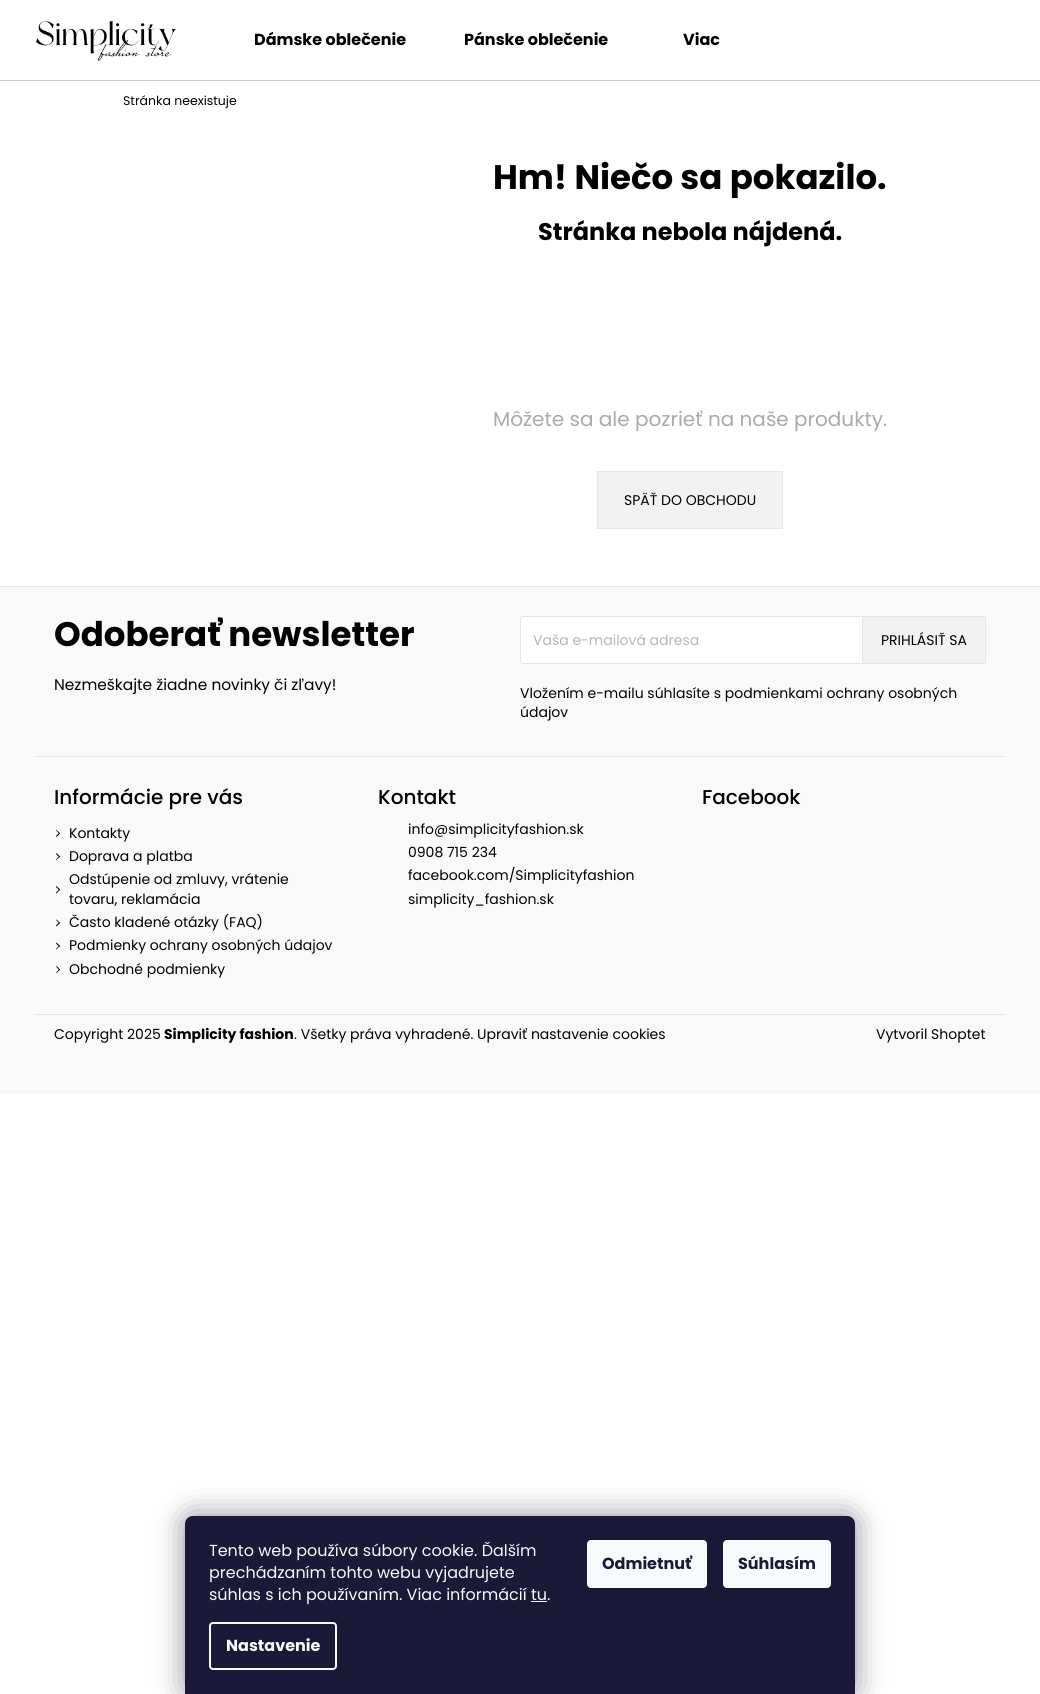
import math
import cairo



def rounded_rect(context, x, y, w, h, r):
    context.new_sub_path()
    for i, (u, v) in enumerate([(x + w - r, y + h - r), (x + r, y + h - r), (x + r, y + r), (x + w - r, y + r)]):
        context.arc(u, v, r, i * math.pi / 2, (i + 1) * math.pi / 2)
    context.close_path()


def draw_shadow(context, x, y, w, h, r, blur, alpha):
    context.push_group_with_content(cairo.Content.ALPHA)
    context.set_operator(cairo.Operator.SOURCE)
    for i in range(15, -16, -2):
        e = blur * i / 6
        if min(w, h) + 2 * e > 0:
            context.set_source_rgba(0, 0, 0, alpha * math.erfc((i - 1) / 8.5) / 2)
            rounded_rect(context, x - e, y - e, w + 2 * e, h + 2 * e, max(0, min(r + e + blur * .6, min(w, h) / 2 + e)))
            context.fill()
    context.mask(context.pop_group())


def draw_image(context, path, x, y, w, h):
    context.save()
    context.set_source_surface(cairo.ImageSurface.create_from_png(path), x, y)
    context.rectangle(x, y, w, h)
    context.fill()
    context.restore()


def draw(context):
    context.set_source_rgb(1, 1, 1)
    context.paint()
    context.set_source_rgb(204 / 255, 204 / 255, 204 / 255)
    context.rectangle(0, 80, 1040, 1)
    context.fill()
    draw_image(context, "images/1.png", 36, 21, 140, 40)
    context.set_source_rgb(242 / 255, 242 / 255, 242 / 255)
    context.rectangle(597.5, 471.5, 185, 57)
    context.fill_preserve()
    context.set_source_rgb(230 / 255, 230 / 255, 230 / 255)
    context.set_line_width(1)
    context.stroke()
    context.set_source_rgb(249 / 255, 249 / 255, 249 / 255)
    context.rectangle(0, 587, 1040, 507)
    context.fill()
    context.set_source_rgb(230 / 255, 230 / 255, 230 / 255)
    context.rectangle(0, 586, 1040, 1)
    context.fill()
    context.rectangle(34, 756, 972, 1)
    context.fill()
    context.set_source_rgb(1, 1, 1)
    rounded_rect(context, 520.5, 616.5, 465, 47, 2.5)
    context.fill_preserve()
    context.set_source_rgb(230 / 255, 230 / 255, 230 / 255)
    context.stroke()
    context.set_source_rgb(242 / 255, 242 / 255, 242 / 255)
    context.rectangle(862.5, 616.5, 123, 47)
    context.fill_preserve()
    context.set_source_rgb(230 / 255, 230 / 255, 230 / 255)
    context.stroke()
    context.set_source_rgb(0, 0, 0)
    context.new_path()
    context.move_to(56, 830.5)
    context.line_to(56.5, 830)
    context.line_to(60, 833.5)
    context.line_to(59.5, 834)
    context.close_path()
    context.fill()
    context.new_path()
    context.move_to(56, 836)
    context.line_to(59.5, 832.5)
    context.line_to(60, 833.5)
    context.line_to(56.5, 837)
    context.close_path()
    context.fill()
    context.new_path()
    context.move_to(56, 854)
    context.line_to(56.5, 853)
    context.line_to(60, 856.5)
    context.line_to(59.5, 857.5)
    context.close_path()
    context.fill()
    context.new_path()
    context.move_to(56, 859.5)
    context.line_to(59.5, 856)
    context.line_to(60, 856.5)
    context.line_to(56.5, 860)
    context.close_path()
    context.fill()
    context.new_path()
    context.move_to(56, 887)
    context.line_to(56.5, 886)
    context.line_to(60, 889.5)
    context.line_to(59.5, 890.5)
    context.close_path()
    context.fill()
    context.new_path()
    context.move_to(56, 892.5)
    context.line_to(59.5, 889)
    context.line_to(60, 889.5)
    context.line_to(56.5, 893.5)
    context.close_path()
    context.fill()
    context.new_path()
    context.move_to(56, 920)
    context.line_to(56.5, 919.5)
    context.line_to(60, 923)
    context.line_to(59.5, 923.5)
    context.close_path()
    context.fill()
    context.new_path()
    context.move_to(56, 925.5)
    context.line_to(59.5, 922)
    context.line_to(60, 923)
    context.line_to(56.5, 926.5)
    context.close_path()
    context.fill()
    context.new_path()
    context.move_to(56, 943.5)
    context.line_to(56.5, 942.5)
    context.line_to(60, 946)
    context.line_to(59.5, 947)
    context.close_path()
    context.fill()
    context.new_path()
    context.move_to(56, 949)
    context.line_to(59.5, 945.5)
    context.line_to(60, 946)
    context.line_to(56.5, 949.5)
    context.close_path()
    context.fill()
    context.new_path()
    context.move_to(56, 966.5)
    context.line_to(56.5, 966)
    context.line_to(60, 969.5)
    context.line_to(59.5, 970.5)
    context.close_path()
    context.fill()
    context.new_path()
    context.move_to(56, 972.5)
    context.line_to(59.5, 969)
    context.line_to(60, 969.5)
    context.line_to(56.5, 973)
    context.close_path()
    context.fill()
    context.set_source_rgb(230 / 255, 230 / 255, 230 / 255)
    context.rectangle(34, 1014, 972, 1)
    context.fill()
    context.set_source_rgb(27 / 255, 25 / 255, 57 / 255)
    draw_shadow(context, 185, 1516, 670, 178, 8, 15, 0.5)
    context.set_source_rgb(26 / 255, 25 / 255, 55 / 255)
    context.new_path()
    context.move_to(193, 1516)
    context.line_to(847, 1516)
    context.curve_to(851.5, 1516, 855, 1519.5, 855, 1524)
    context.line_to(855, 1694)
    context.line_to(185, 1694)
    context.line_to(185, 1524)
    context.curve_to(185, 1519.5, 188.5, 1516, 193, 1516)
    context.close_path()
    context.fill()
    context.set_source_rgb(248 / 255, 250 / 255, 251 / 255)
    context.rectangle(531, 1601, 16, 1)
    context.fill()
    rounded_rect(context, 210, 1623, 126, 46, 3)
    context.set_line_width(2)
    context.stroke()
    rounded_rect(context, 587, 1540, 120, 48, 4)
    context.fill()
    rounded_rect(context, 723, 1540, 108, 48, 4)
    context.fill()
    context.select_font_face("Poppins", cairo.FontSlant.NORMAL, cairo.FontWeight.BOLD)
    context.set_font_size(16)
    context.set_source_rgb(0, 0, 0)
    context.move_to(254, 45)
    context.show_text("Dámske oblečenie")
    context.move_to(464, 45)
    context.show_text("Pánske oblečenie")
    context.move_to(683, 45)
    context.show_text("Viac")
    context.select_font_face("Poppins")
    context.set_font_size(12.5)
    context.move_to(123, 105)
    context.show_text("Stránka neexistuje")
    context.select_font_face("Poppins", cairo.FontSlant.NORMAL, cairo.FontWeight.BOLD)
    context.set_font_size(34)
    context.move_to(493, 189)
    context.show_text("Hm! Niečo sa pokazilo.")
    context.set_font_size(24)
    context.move_to(538, 240)
    context.show_text("Stránka nebola nájdená.")
    context.select_font_face("Poppins")
    context.set_font_size(20)
    context.set_source_rgb(170 / 255, 170 / 255, 170 / 255)
    context.move_to(493, 426)
    context.show_text("Môžete sa ale pozrieť na naše produkty.")
    context.set_font_size(14)
    context.set_source_rgb(0, 0, 0)
    context.move_to(624, 505)
    context.show_text("SPÄŤ DO OBCHODU")
    context.select_font_face("Poppins", cairo.FontSlant.NORMAL, cairo.FontWeight.BOLD)
    context.set_font_size(34)
    context.move_to(54, 646)
    context.show_text("Odoberať newsletter")
    context.select_font_face("Poppins")
    context.set_font_size(15.4)
    context.move_to(54, 690)
    context.show_text("Nezmeškajte žiadne novinky či zľavy!")
    context.set_font_size(14)
    context.set_source_rgb(182 / 255, 182 / 255, 182 / 255)
    context.move_to(533, 645)
    context.show_text("Vaša e-mailová adresa")
    context.set_source_rgb(0, 0, 0)
    context.move_to(881, 645)
    context.show_text("PRIHLÁSIŤ SA")
    context.move_to(520, 698)
    context.show_text("Vložením e-mailu súhlasíte s podmienkami ochrany osobných")
    context.move_to(520, 717)
    context.show_text("údajov")
    context.select_font_face("Poppins Medium")
    context.set_font_size(20)
    context.move_to(54, 804)
    context.show_text("Informácie pre vás")
    context.select_font_face("Poppins")
    context.set_font_size(14)
    context.move_to(69, 838)
    context.show_text("Kontakty")
    context.move_to(69, 861)
    context.show_text("Doprava a platba")
    context.move_to(69, 884)
    context.show_text("Odstúpenie od zmluvy, vrátenie")
    context.move_to(69, 904)
    context.show_text("tovaru, reklamácia")
    context.move_to(69, 927)
    context.show_text("Často kladené otázky (FAQ)")
    context.move_to(69, 950)
    context.show_text("Podmienky ochrany osobných údajov")
    context.move_to(69, 974)
    context.show_text("Obchodné podmienky")
    context.select_font_face("Poppins Medium")
    context.set_font_size(20)
    context.move_to(378, 804)
    context.show_text("Kontakt")
    context.select_font_face("Poppins")
    context.set_font_size(14)
    context.move_to(408, 834)
    context.show_text("info@simplicityfashion.sk")
    context.move_to(408, 857)
    context.show_text("0908 715 234")
    context.move_to(408, 880)
    context.show_text("facebook.com/Simplicityfashion")
    context.move_to(408, 904)
    context.show_text("simplicity_fashion.sk")
    context.select_font_face("Poppins Medium")
    context.set_font_size(20)
    context.move_to(702, 804)
    context.show_text("Facebook")
    context.select_font_face("Poppins")
    context.set_font_size(14)
    context.move_to(54, 1039)
    context.show_text("Copyright 2025")
    context.select_font_face("Poppins", cairo.FontSlant.NORMAL, cairo.FontWeight.BOLD)
    context.move_to(164, 1039)
    context.show_text("Simplicity fashion")
    context.select_font_face("Poppins")
    context.move_to(294, 1039)
    context.show_text(". Všetky práva vyhradené. Upraviť nastavenie cookies")
    context.move_to(876, 1039)
    context.show_text("Vytvoril Shoptet")
    context.set_font_size(16)
    context.set_source_rgb(248 / 255, 250 / 255, 251 / 255)
    context.move_to(209, 1556)
    context.show_text("Tento web používa súbory cookie. Ďalším")
    context.move_to(209, 1578)
    context.show_text("prechádzaním tohto webu vyjadrujete")
    context.move_to(209, 1600)
    context.show_text("súhlas s ich používaním. Viac informácií tu.")
    context.select_font_face("Poppins", cairo.FontSlant.NORMAL, cairo.FontWeight.BOLD)
    context.move_to(226, 1651)
    context.show_text("Nastavenie")
    context.set_source_rgb(26 / 255, 25 / 255, 55 / 255)
    context.move_to(602, 1569)
    context.show_text("Odmietnuť")
    context.move_to(738, 1569)
    context.show_text("Súhlasím")


surface = cairo.ImageSurface(cairo.Format.RGB24, 1040, 1694)
context = cairo.Context(surface)
options = cairo.FontOptions()
options.set_hint_metrics(cairo.HintMetrics.OFF)
options.set_hint_style(cairo.HintStyle.NONE)
context.set_font_options(options)
context.set_miter_limit(4)
draw(context)
surface.write_to_png("out.png")
